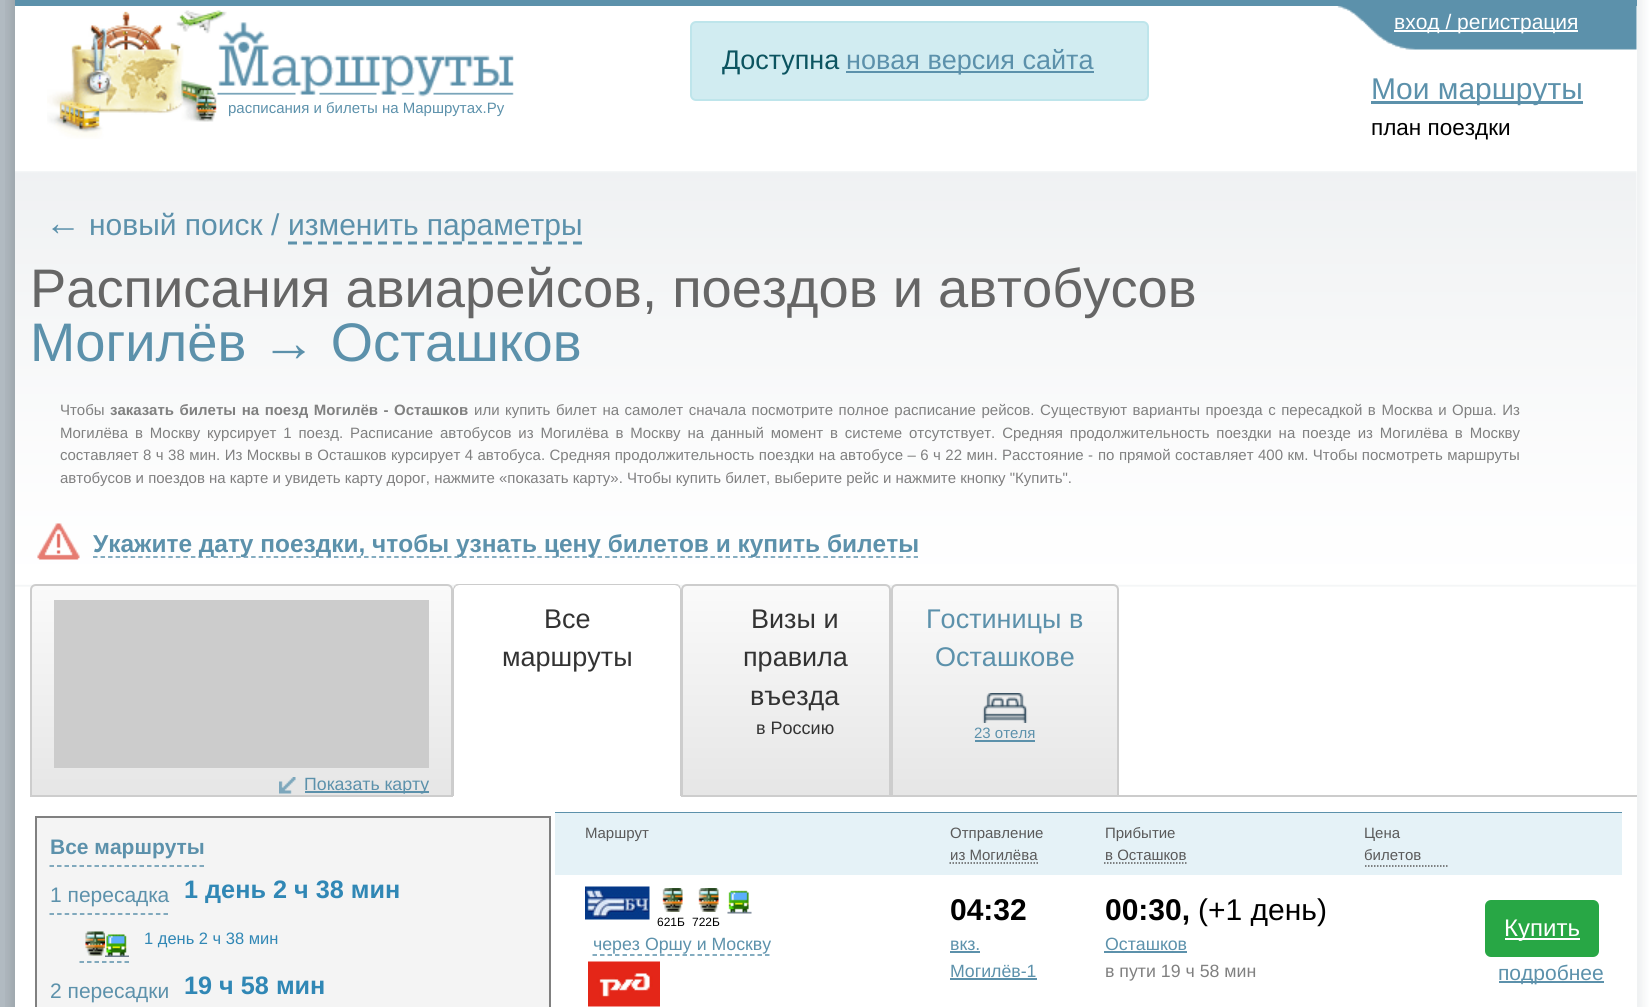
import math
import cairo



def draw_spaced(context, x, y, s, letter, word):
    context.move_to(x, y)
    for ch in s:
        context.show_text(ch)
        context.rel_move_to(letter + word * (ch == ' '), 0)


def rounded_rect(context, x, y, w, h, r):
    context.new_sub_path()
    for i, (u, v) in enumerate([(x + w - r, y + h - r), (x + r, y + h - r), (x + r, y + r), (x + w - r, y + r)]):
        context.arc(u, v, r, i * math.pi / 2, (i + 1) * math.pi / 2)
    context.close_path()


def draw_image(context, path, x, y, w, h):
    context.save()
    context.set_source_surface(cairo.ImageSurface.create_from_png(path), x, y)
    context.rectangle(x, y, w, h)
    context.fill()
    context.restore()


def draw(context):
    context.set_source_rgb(177 / 255, 186 / 255, 193 / 255)
    context.paint()
    draw_image(context, "images/1.png", 5, 0, 10, 1007)
    draw_image(context, "images/2.png", 1637, 0, 14, 1007)
    context.set_source_rgb(1, 1, 1)
    context.rectangle(15, 6, 1622, 1001)
    context.fill()
    context.set_source_rgb(92 / 255, 145 / 255, 171 / 255)
    context.rectangle(15, 0, 1622, 6)
    context.fill()
    draw_image(context, "images/3.png", 1337, 6, 300, 44)
    context.set_source_rgb(1, 1, 1)
    context.rectangle(1394, 30, 184, 2)
    context.fill()
    context.set_source_rgb(209 / 255, 236 / 255, 241 / 255)
    rounded_rect(context, 691, 22, 457, 78, 5)
    context.fill_preserve()
    context.set_source_rgb(190 / 255, 229 / 255, 235 / 255)
    context.stroke()
    context.set_source_rgb(92 / 255, 145 / 255, 171 / 255)
    context.rectangle(846, 71, 248, 2)
    context.fill()
    draw_image(context, "images/4.png", 47, 10, 467, 129)
    context.rectangle(1371, 101, 212, 3)
    context.fill()
    draw_image(context, "images/5.png", 15, 171, 1622, 416)
    context.new_path()
    context.move_to(288, 243)
    context.line_to(582, 243)
    context.set_line_width(3)
    context.set_dash([9, 6])
    context.stroke()
    draw_image(context, "images/6.png", 37, 523, 43, 37)
    context.new_path()
    context.move_to(93, 557)
    context.line_to(918, 557)
    context.set_line_width(1.5)
    context.set_dash([4.5, 3.03])
    context.stroke()
    context.set_source_rgb(204 / 255, 204 / 255, 204 / 255)
    context.rectangle(1119, 795, 518, 2)
    context.fill()
    context.set_source_rgb(1, 1, 1)
    context.new_path()
    context.move_to(459, 584)
    context.line_to(675, 584)
    context.curve_to(678.5, 584, 681, 586.5, 681, 590)
    context.line_to(681, 797)
    context.line_to(453, 797)
    context.line_to(453, 590)
    context.curve_to(453, 586.5, 455.5, 584, 459, 584)
    context.close_path()
    context.fill()
    context.set_source_rgb(204 / 255, 204 / 255, 204 / 255)
    context.new_path()
    context.move_to(459, 584)
    context.curve_to(458, 584, 456, 584, 455, 585)
    context.line_to(456, 586)
    context.line_to(459, 585)
    context.line_to(675, 585)
    context.line_to(678, 586)
    context.line_to(679, 585)
    context.curve_to(678, 584, 676, 584, 675, 584)
    context.close_path()
    context.fill()
    context.new_path()
    context.move_to(679, 585)
    context.curve_to(680, 586, 681, 588, 681, 590)
    context.line_to(681, 796)
    context.line_to(680, 796)
    context.line_to(680, 795)
    context.line_to(680, 589)
    context.line_to(678, 586)
    context.close_path()
    context.fill()
    context.new_path()
    context.move_to(453, 590)
    context.line_to(453, 796)
    context.line_to(454, 796)
    context.line_to(454, 795)
    context.line_to(454, 589)
    context.line_to(456, 586)
    context.line_to(455, 585)
    context.curve_to(454, 586, 453, 588, 453, 590)
    context.close_path()
    context.fill()
    context.save()
    context.new_path()
    context.move_to(687, 584)
    context.line_to(885, 584)
    context.curve_to(888.5, 584, 891, 586.5, 891, 590)
    context.line_to(891, 797)
    context.line_to(681, 797)
    context.line_to(681, 590)
    context.curve_to(681, 586.5, 683.5, 584, 687, 584)
    context.close_path()
    context.clip()
    gradient = cairo.LinearGradient(786, 585, 786, 795)
    gradient.add_color_stop_rgba(0, 250 / 255, 250 / 255, 250 / 255, 1)
    gradient.add_color_stop_rgba(1, 230 / 255, 230 / 255, 230 / 255, 1)
    context.set_source(gradient)
    context.rectangle(681, 585, 210, 210)
    context.fill()
    context.restore()
    context.new_path()
    context.move_to(687, 585)
    context.line_to(885, 585)
    context.curve_to(888, 585, 890, 587, 890, 590)
    context.line_to(890, 796)
    context.line_to(682, 796)
    context.line_to(682, 590)
    context.curve_to(682, 587, 684, 585, 687, 585)
    context.close_path()
    context.set_source_rgb(205 / 255, 205 / 255, 205 / 255)
    context.set_line_width(2)
    context.set_dash([])
    context.stroke()
    context.save()
    context.new_path()
    context.move_to(897, 584)
    context.line_to(1113, 584)
    context.curve_to(1116.5, 584, 1119, 586.5, 1119, 590)
    context.line_to(1119, 797)
    context.line_to(891, 797)
    context.line_to(891, 590)
    context.curve_to(891, 586.5, 893.5, 584, 897, 584)
    context.close_path()
    context.clip()
    gradient = cairo.LinearGradient(1005, 585, 1005, 795)
    gradient.add_color_stop_rgba(0, 250 / 255, 250 / 255, 250 / 255, 1)
    gradient.add_color_stop_rgba(1, 230 / 255, 230 / 255, 230 / 255, 1)
    context.set_source(gradient)
    context.rectangle(891, 585, 228, 210)
    context.fill()
    context.restore()
    context.new_path()
    context.move_to(897, 585)
    context.line_to(1113, 585)
    context.curve_to(1116, 585, 1118, 587, 1118, 590)
    context.line_to(1118, 796)
    context.line_to(892, 796)
    context.line_to(892, 590)
    context.curve_to(892, 587, 894, 585, 897, 585)
    context.close_path()
    context.stroke()
    draw_image(context, "images/7.png", 982, 693, 46, 30)
    context.set_source_rgb(92 / 255, 145 / 255, 171 / 255)
    context.rectangle(975, 740, 60, 2)
    context.fill()
    context.save()
    context.new_path()
    context.move_to(36, 584)
    context.line_to(447, 584)
    context.curve_to(450.5, 584, 453, 586.5, 453, 590)
    context.line_to(453, 797)
    context.line_to(30, 797)
    context.line_to(30, 590)
    context.curve_to(30, 586.5, 32.5, 584, 36, 584)
    context.close_path()
    context.clip()
    gradient = cairo.LinearGradient(242, 585, 242, 795)
    gradient.add_color_stop_rgba(0, 250 / 255, 250 / 255, 250 / 255, 1)
    gradient.add_color_stop_rgba(1, 230 / 255, 230 / 255, 230 / 255, 1)
    context.set_source(gradient)
    context.rectangle(30, 585, 423, 210)
    context.fill()
    context.restore()
    context.new_path()
    context.move_to(36, 585)
    context.line_to(447, 585)
    context.curve_to(450, 585, 452, 587, 452, 590)
    context.line_to(452, 796)
    context.line_to(31, 796)
    context.line_to(31, 590)
    context.curve_to(31, 587, 33, 585, 36, 585)
    context.close_path()
    context.set_source_rgb(205 / 255, 205 / 255, 205 / 255)
    context.stroke()
    context.set_source_rgb(204 / 255, 204 / 255, 204 / 255)
    context.rectangle(54, 600, 375, 168)
    context.fill()
    draw_image(context, "images/8.png", 279, 777, 17, 17)
    context.set_source_rgb(92 / 255, 145 / 255, 171 / 255)
    context.rectangle(305, 791, 124, 2)
    context.fill()
    context.set_source_rgb(244 / 255, 244 / 255, 244 / 255)
    context.rectangle(36, 817, 514, 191)
    context.fill_preserve()
    context.set_source_rgb(128 / 255, 128 / 255, 128 / 255)
    context.stroke()
    context.new_path()
    context.move_to(49.5, 866)
    context.line_to(204, 866)
    context.set_source_rgb(92 / 255, 145 / 255, 171 / 255)
    context.set_line_width(1.5)
    context.set_dash([4.5, 3])
    context.stroke()
    context.new_path()
    context.move_to(49.5, 914)
    context.line_to(168, 914)
    context.set_dash([4.5, 3.1])
    context.stroke()
    context.new_path()
    context.move_to(79.5, 962)
    context.line_to(129, 962)
    context.set_dash([4.5, 3])
    context.stroke()
    draw_image(context, "images/9.png", 85, 931, 20, 25)
    draw_image(context, "images/10.png", 105, 934, 24, 23)
    context.rectangle(555, 812, 1067, 1)
    context.fill()
    context.set_source_rgb(229 / 255, 242 / 255, 247 / 255)
    context.rectangle(555, 813, 1067, 62)
    context.fill()
    context.new_path()
    context.move_to(949.5, 863)
    context.line_to(1038, 863)
    context.set_source_rgb(90 / 255, 90 / 255, 90 / 255)
    context.set_dash([1.5, 1.5])
    context.stroke()
    context.new_path()
    context.move_to(1104, 863)
    context.line_to(1186.5, 863)
    context.stroke()
    context.new_path()
    context.move_to(1365, 866)
    context.line_to(1447.5, 866)
    context.stroke()
    draw_image(context, "images/11.png", 585, 886, 65, 34)
    draw_image(context, "images/12.png", 727, 890, 25, 24)
    draw_image(context, "images/13.png", 662, 888, 21, 24)
    draw_image(context, "images/13.png", 698, 888, 21, 24)
    context.new_path()
    context.move_to(592.5, 955)
    context.line_to(769.5, 955)
    context.set_source_rgb(92 / 255, 145 / 255, 171 / 255)
    context.set_dash([4.5, 3])
    context.stroke()
    draw_image(context, "images/14.png", 588, 961, 72, 46)
    context.rectangle(950, 951, 30, 2)
    context.fill()
    context.rectangle(950, 978, 87, 2)
    context.fill()
    context.rectangle(1104, 951, 83, 2)
    context.fill()
    context.set_source_rgb(40 / 255, 167 / 255, 69 / 255)
    rounded_rect(context, 1486, 901, 112, 55, 5)
    context.fill_preserve()
    context.set_line_width(2)
    context.set_dash([])
    context.stroke()
    context.set_source_rgb(1, 1, 1)
    context.rectangle(1505, 938, 75, 2)
    context.fill()
    context.set_source_rgb(92 / 255, 145 / 255, 171 / 255)
    context.rectangle(1499, 981, 105, 2)
    context.fill()
    context.select_font_face("Liberation Sans")
    context.set_font_size(21)
    context.set_source_rgb(1, 1, 1)
    context.move_to(1394, 29)
    context.show_text("вход / регистрация")
    context.set_font_size(27)
    context.set_source_rgb(12 / 255, 84 / 255, 96 / 255)
    context.move_to(722, 69)
    context.show_text("Доступна")
    context.set_source_rgb(92 / 255, 145 / 255, 171 / 255)
    context.move_to(846, 69)
    context.show_text("новая версия сайта")
    context.set_font_size(15)
    context.move_to(228, 113)
    context.show_text("расписания и билеты на Маршрутах.Ру")
    context.set_font_size(30)
    context.move_to(1371, 99)
    context.show_text("Мои маршруты")
    context.set_font_size(22.5)
    context.set_source_rgb(0, 0, 0)
    context.move_to(1371, 135)
    context.show_text("план поездки")
    context.set_font_size(36)
    context.set_source_rgb(92 / 255, 145 / 255, 171 / 255)
    context.move_to(45, 235)
    context.show_text("←")
    context.set_font_size(30)
    context.move_to(89, 235)
    context.show_text("новый поиск /")
    context.move_to(288, 235)
    context.show_text("изменить параметры")
    context.set_font_size(54.3)
    context.set_source_rgb(102 / 255, 102 / 255, 102 / 255)
    context.move_to(30, 307)
    context.show_text("Расписания авиарейсов, поездов и автобусов")
    context.set_source_rgb(92 / 255, 145 / 255, 171 / 255)
    context.move_to(30, 361)
    context.show_text("Могилёв → Осташков")
    context.set_font_size(15)
    context.set_source_rgb(128 / 255, 128 / 255, 128 / 255)
    context.move_to(60, 415)
    context.show_text("Чтобы")
    context.select_font_face("Liberation Sans", cairo.FontSlant.NORMAL, cairo.FontWeight.BOLD)
    draw_spaced(context, 110, 415, "заказать билеты на поезд Могилёв - Осташков", 0, 1.4)
    context.select_font_face("Liberation Sans")
    draw_spaced(context, 474, 415, "или купить билет на самолет сначала посмотрите полное расписание рейсов. Существуют варианты проезда с пересадкой в Москва и Орша. Из", 0, 1.4)
    draw_spaced(context, 60, 438, "Могилёва в Москву курсирует 1 поезд. Расписание автобусов из Могилёва в Москву на данный момент в системе отсутствует. Средняя продолжительность поездки на поезде из Могилёва в Москву", 0, 2.7)
    draw_spaced(context, 60, 460, "составляет 8 ч 38 мин. Из Москвы в Осташков курсирует 4 автобуса. Средняя продолжительность поездки на автобусе – 6 ч 22 мин. Расстояние", 0, 0.25)
    context.move_to(1088, 460)
    context.show_text("-")
    draw_spaced(context, 1098, 460, "по прямой составляет 400 км. Чтобы посмотреть маршруты", 0, 0.25)
    context.move_to(60, 483)
    context.show_text("автобусов и поездов на карте и увидеть карту дорог, нажмите «показать карту». Чтобы купить билет, выберите рейс и нажмите кнопку \"Купить\".")
    context.select_font_face("Liberation Sans", cairo.FontSlant.NORMAL, cairo.FontWeight.BOLD)
    context.set_font_size(24.45)
    context.set_source_rgb(92 / 255, 145 / 255, 171 / 255)
    context.move_to(93, 552)
    context.show_text("Укажите дату поездки, чтобы узнать цену билетов и купить билеты")
    context.select_font_face("Liberation Sans")
    context.set_font_size(27)
    context.set_source_rgb(51 / 255, 51 / 255, 51 / 255)
    context.move_to(544, 628)
    context.show_text("Все")
    context.move_to(502, 666)
    context.show_text("маршруты")
    context.move_to(751, 628)
    context.show_text("Визы и")
    context.move_to(743, 666)
    context.show_text("правила")
    context.move_to(750, 705)
    context.show_text("въезда")
    context.set_font_size(18)
    context.move_to(756, 734)
    context.show_text("в Россию")
    context.set_font_size(27)
    context.set_source_rgb(92 / 255, 145 / 255, 171 / 255)
    context.move_to(926, 628)
    context.show_text("Гостиницы в")
    context.move_to(935, 666)
    context.show_text("Осташкове")
    context.set_font_size(15)
    context.move_to(974, 738)
    context.show_text("23 отеля")
    context.set_font_size(17.75)
    context.move_to(304, 790)
    context.show_text("Показать карту")
    context.select_font_face("Liberation Sans", cairo.FontSlant.NORMAL, cairo.FontWeight.BOLD)
    context.set_font_size(21)
    context.move_to(50, 854)
    context.show_text("Все маршруты")
    context.select_font_face("Liberation Sans")
    context.move_to(50, 902)
    context.show_text("1 пересадка")
    context.select_font_face("Liberation Sans", cairo.FontSlant.NORMAL, cairo.FontWeight.BOLD)
    context.set_font_size(25.25)
    context.set_source_rgb(48 / 255, 135 / 255, 181 / 255)
    context.move_to(184, 898)
    context.show_text("1 день 2 ч 38 мин")
    context.select_font_face("Liberation Sans")
    context.set_font_size(16.5)
    context.move_to(144, 944)
    context.show_text("1 день 2 ч 38 мин")
    context.set_font_size(21)
    context.set_source_rgb(92 / 255, 145 / 255, 171 / 255)
    context.move_to(50, 998)
    context.show_text("2 пересадки")
    context.select_font_face("Liberation Sans", cairo.FontSlant.NORMAL, cairo.FontWeight.BOLD)
    context.set_font_size(25.25)
    context.set_source_rgb(48 / 255, 135 / 255, 181 / 255)
    context.move_to(184, 994)
    context.show_text("19 ч 58 мин")
    context.select_font_face("Liberation Sans")
    context.set_font_size(15)
    context.set_source_rgb(90 / 255, 90 / 255, 90 / 255)
    context.move_to(585, 838)
    context.show_text("Маршрут")
    context.move_to(950, 838)
    context.show_text("Отправление")
    context.move_to(950, 860)
    context.show_text("из Могилёва")
    context.move_to(1105, 838)
    context.show_text("Прибытие")
    context.move_to(1105, 860)
    context.show_text("в Осташков")
    context.move_to(1364, 838)
    context.show_text("Цена")
    context.move_to(1364, 860)
    context.show_text("билетов")
    context.set_font_size(12)
    context.set_source_rgb(0, 0, 0)
    context.move_to(657, 926)
    context.show_text("621Б")
    context.move_to(692, 926)
    context.show_text("722Б")
    context.set_font_size(17.75)
    context.set_source_rgb(92 / 255, 145 / 255, 171 / 255)
    context.move_to(593, 950)
    context.show_text("через Оршу и Москву")
    context.select_font_face("Liberation Sans", cairo.FontSlant.NORMAL, cairo.FontWeight.BOLD)
    context.set_font_size(30)
    context.set_source_rgb(0, 0, 0)
    context.move_to(950, 920)
    context.show_text("04:32")
    context.select_font_face("Liberation Sans")
    context.set_font_size(17.75)
    context.set_source_rgb(92 / 255, 145 / 255, 171 / 255)
    context.move_to(950, 950)
    context.show_text("вкз.")
    context.move_to(950, 977)
    context.show_text("Могилёв-1")
    context.select_font_face("Liberation Sans", cairo.FontSlant.NORMAL, cairo.FontWeight.BOLD)
    context.set_font_size(30)
    context.set_source_rgb(0, 0, 0)
    context.move_to(1105, 920)
    context.show_text("00:30,")
    context.select_font_face("Liberation Sans")
    context.move_to(1198, 920)
    context.show_text("(+1 день)")
    context.set_font_size(17.75)
    context.set_source_rgb(92 / 255, 145 / 255, 171 / 255)
    context.move_to(1105, 950)
    context.show_text("Осташков")
    context.set_source_rgb(128 / 255, 128 / 255, 128 / 255)
    context.move_to(1105, 977)
    context.show_text("в пути 19 ч 58 мин")
    context.set_font_size(24)
    context.set_source_rgb(1, 1, 1)
    context.move_to(1504, 936)
    context.show_text("Купить")
    context.set_font_size(21)
    context.set_source_rgb(92 / 255, 145 / 255, 171 / 255)
    context.move_to(1498, 980)
    context.show_text("подробнее")


surface = cairo.ImageSurface(cairo.Format.RGB24, 1651, 1007)
context = cairo.Context(surface)
options = cairo.FontOptions()
options.set_hint_metrics(cairo.HintMetrics.OFF)
options.set_hint_style(cairo.HintStyle.NONE)
context.set_font_options(options)
context.set_miter_limit(4)
draw(context)
surface.write_to_png("out.png")
